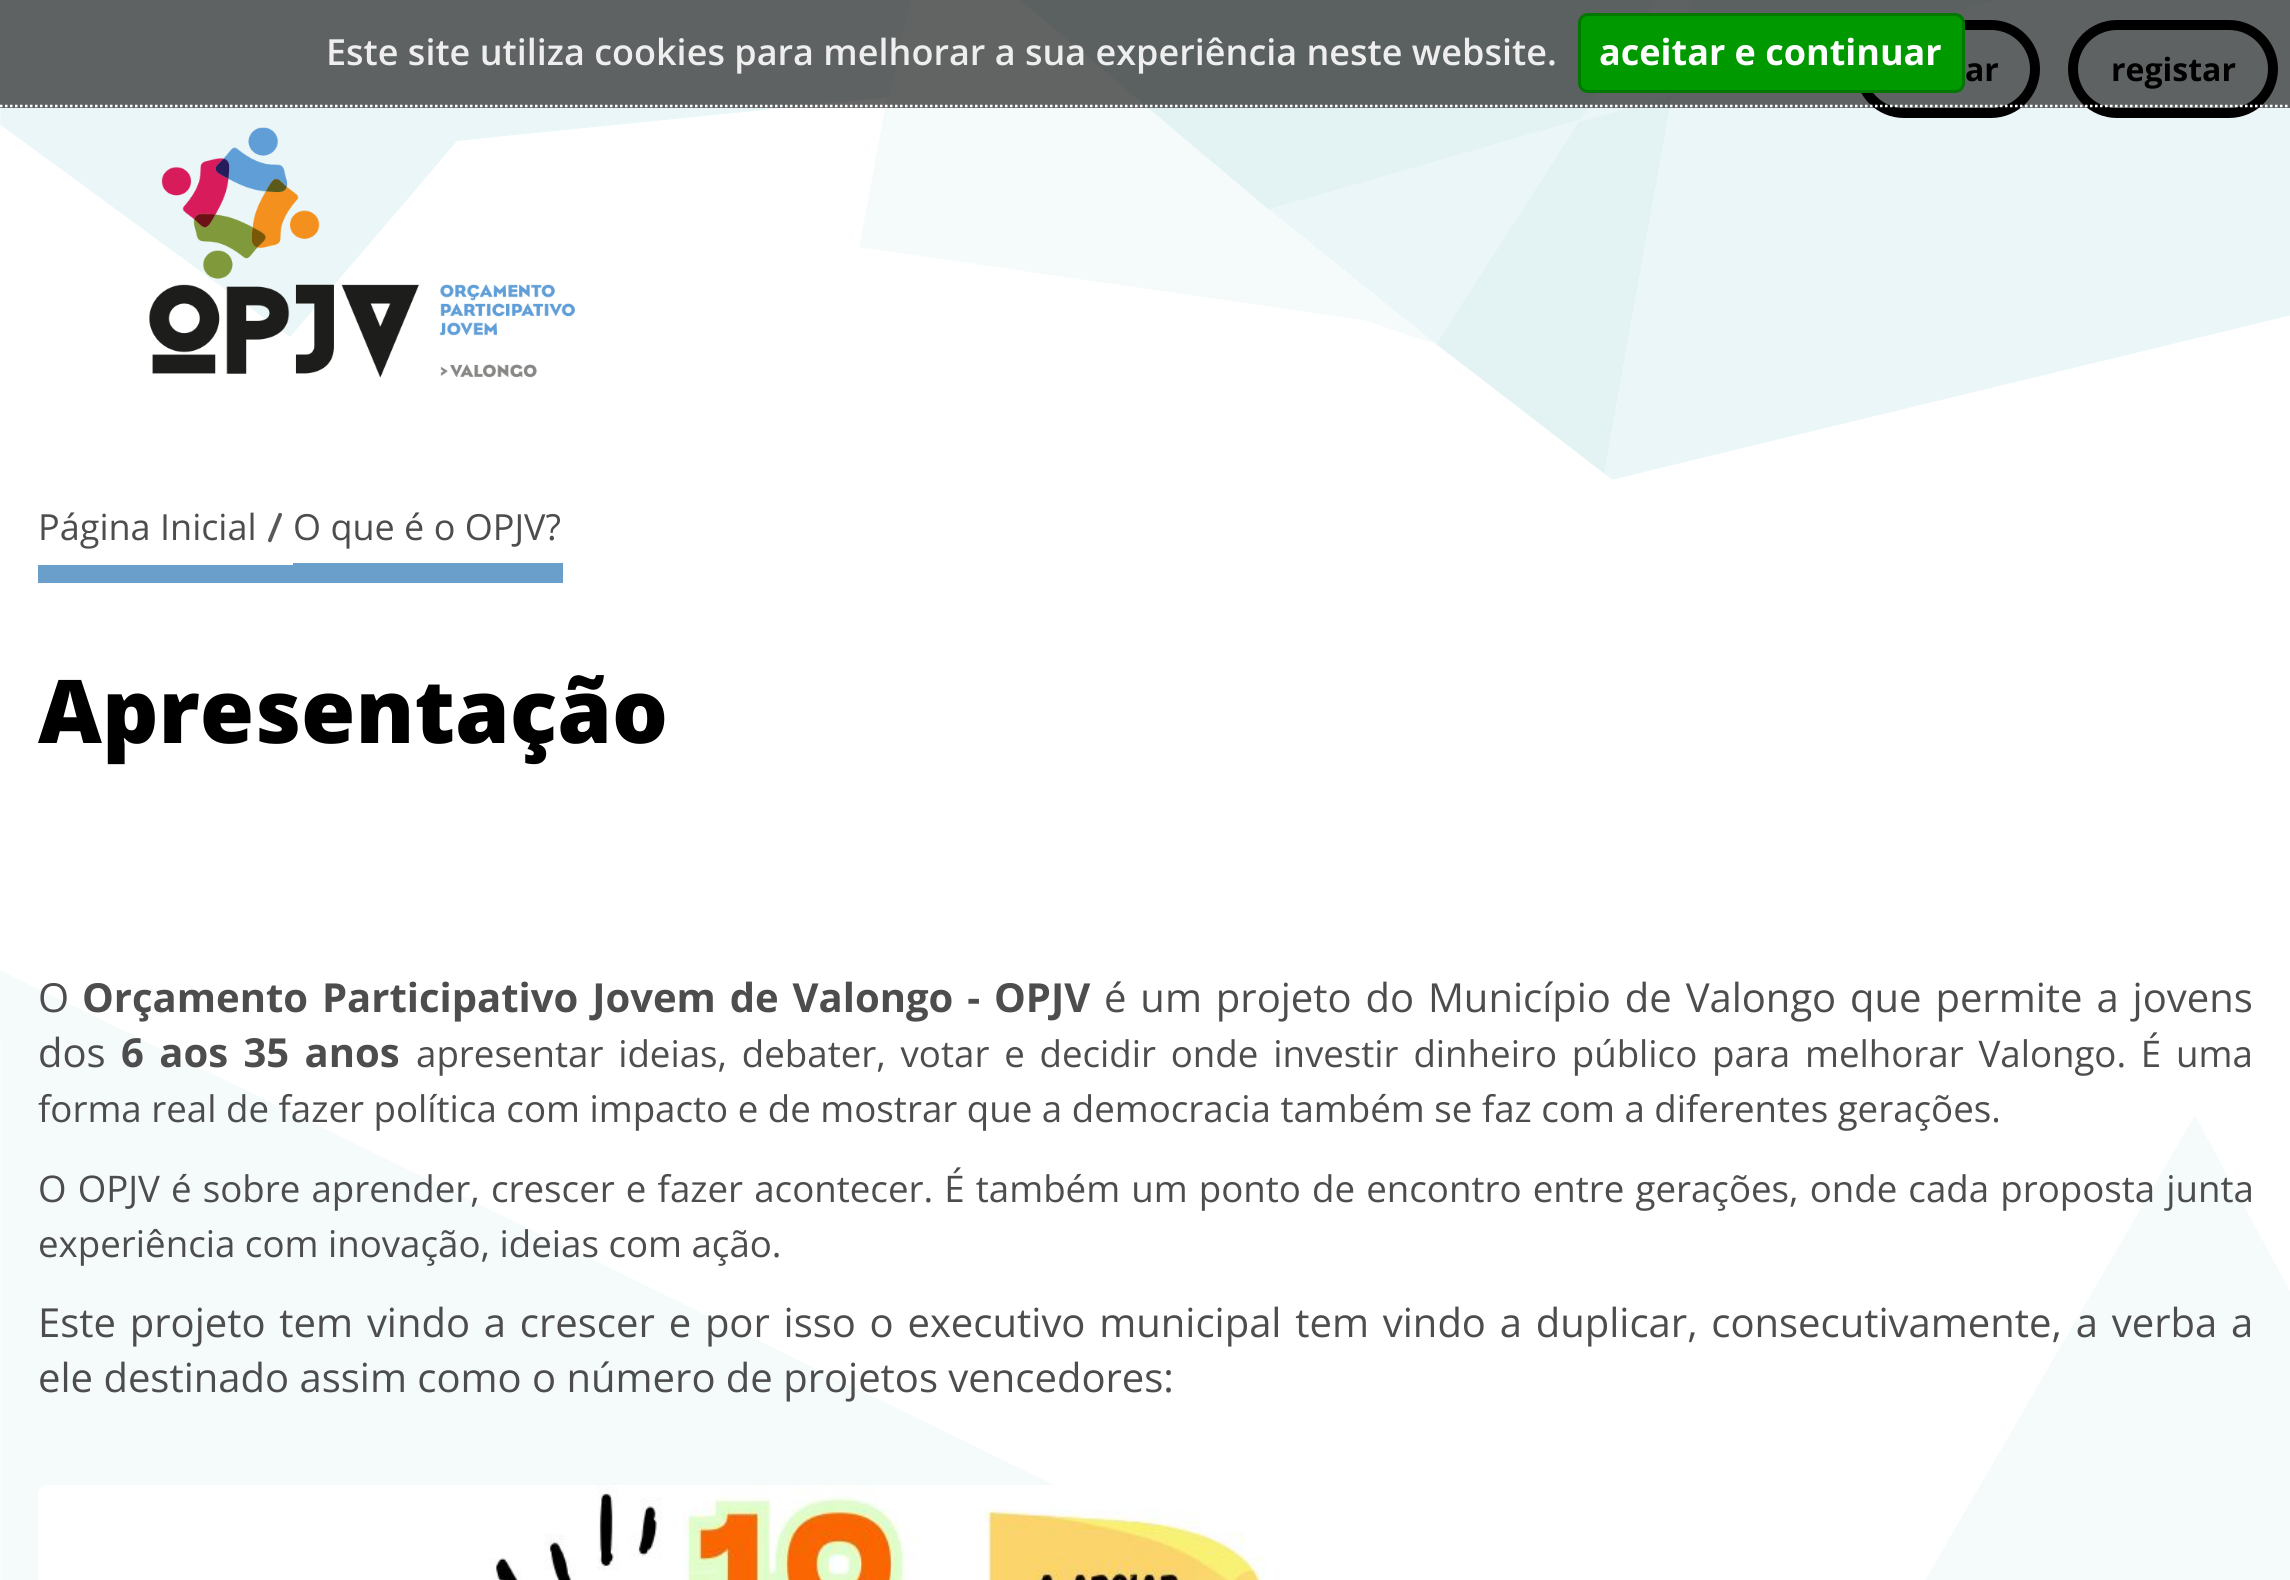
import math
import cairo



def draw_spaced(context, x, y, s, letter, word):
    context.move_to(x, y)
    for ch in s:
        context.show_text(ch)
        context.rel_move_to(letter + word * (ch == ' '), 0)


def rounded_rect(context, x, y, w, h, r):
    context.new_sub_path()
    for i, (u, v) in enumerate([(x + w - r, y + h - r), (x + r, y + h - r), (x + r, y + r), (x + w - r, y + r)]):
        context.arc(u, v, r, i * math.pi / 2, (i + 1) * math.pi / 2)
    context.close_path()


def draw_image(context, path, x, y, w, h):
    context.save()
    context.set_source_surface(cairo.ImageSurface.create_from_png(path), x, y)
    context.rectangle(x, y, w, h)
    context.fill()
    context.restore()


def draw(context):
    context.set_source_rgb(1, 1, 1)
    context.paint()
    draw_image(context, "images/1.png", 0, 0, 2290, 1580)
    rounded_rect(context, 1860, 25, 175, 88, 44)
    context.set_source_rgb(0, 0, 0)
    context.set_line_width(10)
    context.stroke()
    rounded_rect(context, 2073, 25, 200, 88, 44)
    context.stroke()
    draw_image(context, "images/2.png", 149, 127, 426, 251)
    context.set_source_rgb(106 / 255, 159 / 255, 203 / 255)
    context.rectangle(38, 565, 255, 18)
    context.fill()
    context.rectangle(293, 563, 270, 20)
    context.fill()
    draw_image(context, "images/3.png", 268, 513, 14, 30)
    draw_image(context, "images/4.png", 38, 1485, 1244, 95)
    context.select_font_face("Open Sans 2", cairo.FontSlant.NORMAL, cairo.FontWeight.BOLD)
    context.set_font_size(32)
    context.set_source_rgb(0, 0, 0)
    context.move_to(1965, 81)
    context.show_text("ar")
    context.move_to(2111, 81)
    context.show_text("registar")
    context.set_source_rgba(0, 0, 0, 0.6)
    context.rectangle(0, 0, 2290, 108)
    context.fill()
    context.set_source_rgb(0, 153 / 255, 0)
    rounded_rect(context, 1579.5, 14.5, 384, 77, 8.5)
    context.fill_preserve()
    context.set_source_rgb(0, 119 / 255, 0)
    context.set_line_width(3)
    context.stroke()
    context.set_font_size(36)
    context.set_source_rgb(1, 1, 1)
    context.move_to(1599, 65)
    context.show_text("aceitar e continuar")
    context.select_font_face("Open Sans SemiBold")
    context.set_source_rgb(238 / 255, 238 / 255, 238 / 255)
    context.move_to(326, 65)
    context.show_text("Este site utiliza cookies para melhorar a sua experiência neste website.")
    context.new_path()
    context.move_to(0, 106)
    context.line_to(2290, 106)
    context.set_source_rgb(1, 1, 1)
    context.set_line_width(2.5)
    context.set_dash([2.5, 2.5])
    context.stroke()
    context.select_font_face("Open Sans")
    context.set_source_rgb(77 / 255, 77 / 255, 77 / 255)
    context.move_to(38, 540)
    context.show_text("Página Inicial")
    context.move_to(293, 540)
    context.show_text("O que é o OPJV?")
    context.select_font_face("Open Sans ExtraBold")
    context.set_font_size(88)
    context.set_source_rgb(0, 0, 0)
    context.move_to(38, 743)
    context.show_text("Apresentação")
    context.select_font_face("Open Sans 2")
    context.set_font_size(40)
    context.set_source_rgb(77 / 255, 77 / 255, 77 / 255)
    context.move_to(38, 1012)
    context.show_text("O")
    context.select_font_face("Open Sans", cairo.FontSlant.NORMAL, cairo.FontWeight.BOLD)
    draw_spaced(context, 82, 1012, "Orçamento Participativo Jovem de Valongo - OPJV", 0, 3.5)
    context.select_font_face("Open Sans 2")
    draw_spaced(context, 1104, 1012, "é um projeto do Município de Valongo que permite a jovens", 0, 3.5)
    context.move_to(38, 1067)
    context.show_text("dos")
    context.select_font_face("Open Sans", cairo.FontSlant.NORMAL, cairo.FontWeight.BOLD)
    draw_spaced(context, 121, 1067, "6 aos 35 anos", 0, 5)
    context.select_font_face("Open Sans 2")
    context.set_font_size(36.67)
    draw_spaced(context, 416, 1067, "apresentar ideias, debater, votar e decidir onde investir dinheiro público para melhorar Valongo. É uma", 0, 5.25)
    context.move_to(38, 1122)
    context.show_text("forma real de fazer política com impacto e de mostrar que a democracia também se faz com a diferentes gerações.")
    draw_spaced(context, 38, 1202, "O OPJV é sobre aprender, crescer e fazer acontecer. É também um ponto de encontro entre gerações, onde cada proposta junta", 0, 1.6)
    context.move_to(38, 1257)
    context.show_text("experiência com inovação, ideias com ação.")
    context.set_font_size(40)
    draw_spaced(context, 38, 1337, "Este projeto tem vindo a crescer e por isso o executivo municipal tem vindo a duplicar, consecutivamente, a verba a", 0, 3.4)
    context.move_to(38, 1392)
    context.show_text("ele destinado assim como o número de projetos vencedores:")


surface = cairo.ImageSurface(cairo.Format.RGB24, 2290, 1580)
context = cairo.Context(surface)
options = cairo.FontOptions()
options.set_hint_metrics(cairo.HintMetrics.OFF)
options.set_hint_style(cairo.HintStyle.NONE)
context.set_font_options(options)
context.set_miter_limit(4)
draw(context)
surface.write_to_png("out.png")
